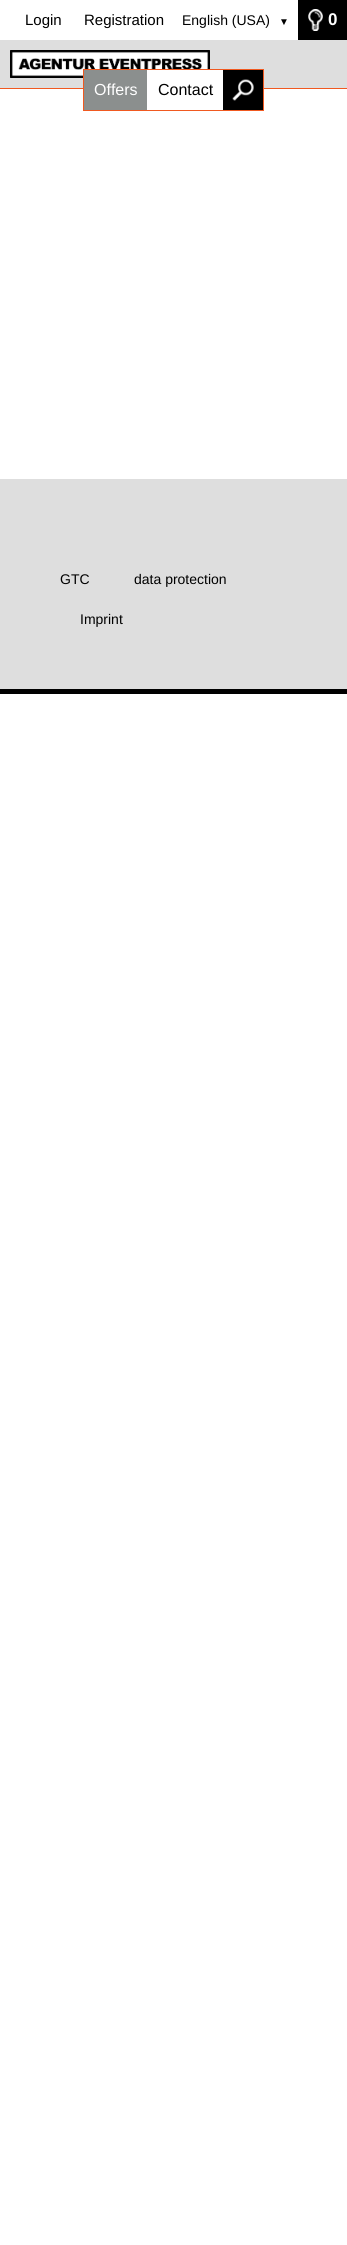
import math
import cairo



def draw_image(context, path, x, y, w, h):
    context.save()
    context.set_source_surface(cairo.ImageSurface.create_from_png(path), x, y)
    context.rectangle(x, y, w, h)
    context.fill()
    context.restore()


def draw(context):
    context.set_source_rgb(1, 1, 1)
    context.paint()
    context.set_source_rgb(0, 0, 0)
    context.rectangle(298, 0, 49, 40)
    context.fill()
    draw_image(context, "images/1.png", 308, 9, 15, 22)
    context.set_source_rgb(222 / 255, 222 / 255, 222 / 255)
    context.rectangle(0, 40, 347, 48)
    context.fill()
    context.set_source_rgb(240 / 255, 89 / 255, 32 / 255)
    context.rectangle(0, 88, 347, 1)
    context.fill()
    draw_image(context, "images/2.png", 10, 50, 200, 28)
    context.set_source_rgb(1, 1, 1)
    context.rectangle(147, 70, 76, 19)
    context.fill()
    context.rectangle(83.5, 69.5, 180, 41)
    context.set_source_rgb(240 / 255, 89 / 255, 32 / 255)
    context.set_line_width(1)
    context.stroke()
    context.set_source_rgb(139 / 255, 143 / 255, 142 / 255)
    context.rectangle(84, 70, 63, 40)
    context.fill()
    context.set_source_rgb(0, 0, 0)
    context.rectangle(223, 70, 40, 40)
    context.fill()
    draw_image(context, "images/3.png", 232, 79, 22, 22)
    context.set_source_rgb(222 / 255, 222 / 255, 222 / 255)
    context.rectangle(0, 479, 347, 210)
    context.fill()
    context.set_source_rgb(0, 0, 0)
    context.rectangle(0, 689, 347, 5)
    context.fill()
    context.select_font_face("Liberation Sans")
    context.set_font_size(15)
    context.move_to(25, 25)
    context.show_text("Login")
    context.move_to(84, 25)
    context.show_text("Registration")
    context.set_font_size(14)
    context.move_to(182, 25)
    context.show_text("English (USA)")
    context.set_font_size(10)
    context.move_to(279, 25)
    context.show_text("▼")
    context.select_font_face("Liberation Sans", cairo.FontSlant.NORMAL, cairo.FontWeight.BOLD)
    context.set_font_size(17)
    context.set_source_rgb(1, 1, 1)
    context.move_to(328, 25)
    context.show_text("0")
    context.select_font_face("Liberation Sans")
    context.set_font_size(16)
    context.move_to(94, 95)
    context.show_text("Offers")
    context.set_source_rgb(0, 0, 0)
    context.move_to(158, 95)
    context.show_text("Contact")
    context.set_font_size(14)
    context.move_to(60, 584)
    context.show_text("GTC")
    context.move_to(134, 584)
    context.show_text("data protection")
    context.move_to(80, 624)
    context.show_text("Imprint")


surface = cairo.ImageSurface(cairo.Format.RGB24, 347, 2245)
context = cairo.Context(surface)
options = cairo.FontOptions()
options.set_hint_metrics(cairo.HintMetrics.OFF)
options.set_hint_style(cairo.HintStyle.NONE)
context.set_font_options(options)
context.set_miter_limit(4)
draw(context)
surface.write_to_png("out.png")
